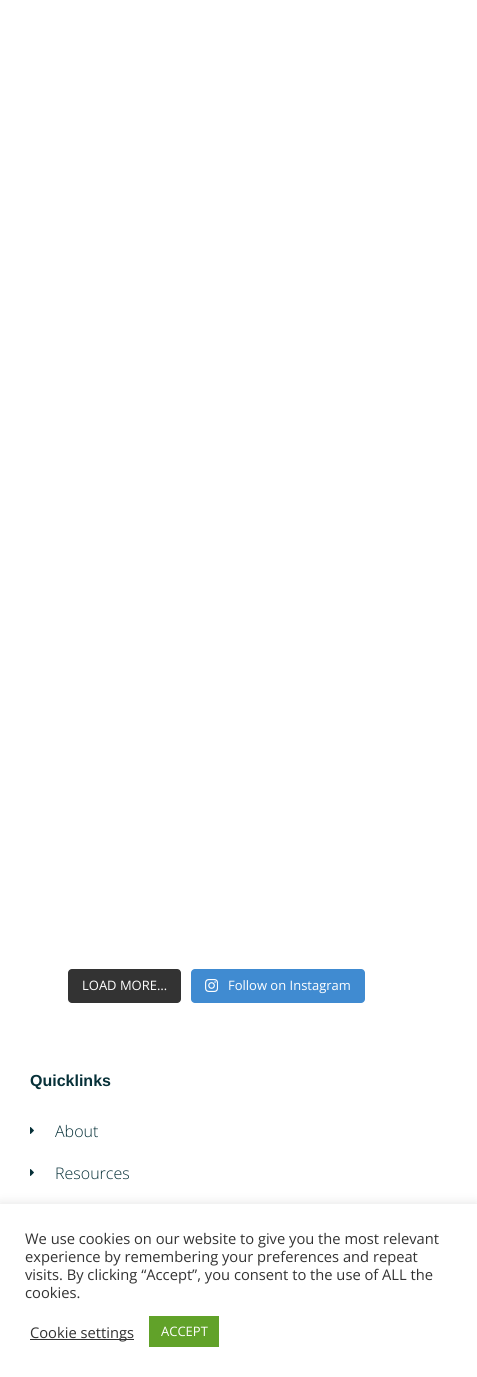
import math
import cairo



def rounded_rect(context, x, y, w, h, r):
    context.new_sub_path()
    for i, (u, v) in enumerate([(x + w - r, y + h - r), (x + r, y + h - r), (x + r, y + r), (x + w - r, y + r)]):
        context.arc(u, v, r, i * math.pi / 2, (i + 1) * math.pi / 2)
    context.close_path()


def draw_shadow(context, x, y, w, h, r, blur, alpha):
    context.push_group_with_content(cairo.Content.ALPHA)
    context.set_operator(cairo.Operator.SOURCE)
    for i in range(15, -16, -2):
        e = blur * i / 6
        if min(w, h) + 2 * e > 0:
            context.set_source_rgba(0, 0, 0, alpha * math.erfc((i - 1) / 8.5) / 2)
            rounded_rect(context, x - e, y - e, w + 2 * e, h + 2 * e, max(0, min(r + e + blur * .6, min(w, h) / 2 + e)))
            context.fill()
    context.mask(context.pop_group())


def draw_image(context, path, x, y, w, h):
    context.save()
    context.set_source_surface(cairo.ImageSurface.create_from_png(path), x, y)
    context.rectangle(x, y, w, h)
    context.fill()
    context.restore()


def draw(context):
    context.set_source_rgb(1, 1, 1)
    context.paint()
    context.set_source_rgb(51 / 255, 51 / 255, 51 / 255)
    rounded_rect(context, 68, 969, 113, 34, 4)
    context.fill()
    context.set_source_rgb(64 / 255, 139 / 255, 209 / 255)
    rounded_rect(context, 191, 969, 174, 34, 4)
    context.fill()
    draw_image(context, "images/1.png", 205, 979, 13, 13)
    draw_image(context, "images/2.png", 30, 1127, 4, 7)
    draw_image(context, "images/2.png", 30, 1169, 4, 7)
    context.set_source_rgb(172 / 255, 171 / 255, 171 / 255)
    draw_shadow(context, 0, 1203, 477, 173, 0, 5, 0.3)
    context.set_source_rgb(1, 1, 1)
    context.rectangle(0, 1204, 477, 173)
    context.fill()
    context.set_source_rgb(51 / 255, 51 / 255, 51 / 255)
    context.rectangle(30, 1339, 104, 1)
    context.fill()
    context.set_source_rgb(97 / 255, 162 / 255, 41 / 255)
    context.rectangle(149, 1316, 70, 31)
    context.fill()
    context.select_font_face("Open Sans")
    context.set_font_size(13)
    context.set_source_rgb(1, 1, 1)
    context.move_to(82, 990)
    context.show_text("LOAD MORE…")
    context.move_to(228, 990)
    context.show_text("Follow on Instagram")
    context.select_font_face("Liberation Sans", cairo.FontSlant.NORMAL, cairo.FontWeight.BOLD)
    context.set_font_size(16)
    context.set_source_rgb(6 / 255, 48 / 255, 56 / 255)
    context.move_to(30, 1086)
    context.show_text("Quicklinks")
    context.select_font_face("Open Sans Light")
    context.move_to(55, 1137)
    context.show_text("About")
    context.move_to(55, 1179)
    context.show_text("Resources")
    context.select_font_face("Open Sans")
    context.set_font_size(14.7)
    context.set_source_rgb(51 / 255, 51 / 255, 51 / 255)
    context.move_to(25, 1244)
    context.show_text("We use cookies on our website to give you the most relevant")
    context.move_to(25, 1262)
    context.show_text("experience by remembering your preferences and repeat")
    context.move_to(25, 1280)
    context.show_text("visits. By clicking “Accept”, you consent to the use of ALL the")
    context.move_to(25, 1298)
    context.show_text("cookies.")
    context.move_to(30, 1338)
    context.show_text("Cookie settings")
    context.set_font_size(13)
    context.set_source_rgb(1, 1, 1)
    context.move_to(161, 1336)
    context.show_text("ACCEPT")


surface = cairo.ImageSurface(cairo.Format.RGB24, 477, 1377)
context = cairo.Context(surface)
options = cairo.FontOptions()
options.set_hint_metrics(cairo.HintMetrics.OFF)
options.set_hint_style(cairo.HintStyle.NONE)
context.set_font_options(options)
context.set_miter_limit(4)
draw(context)
surface.write_to_png("out.png")
